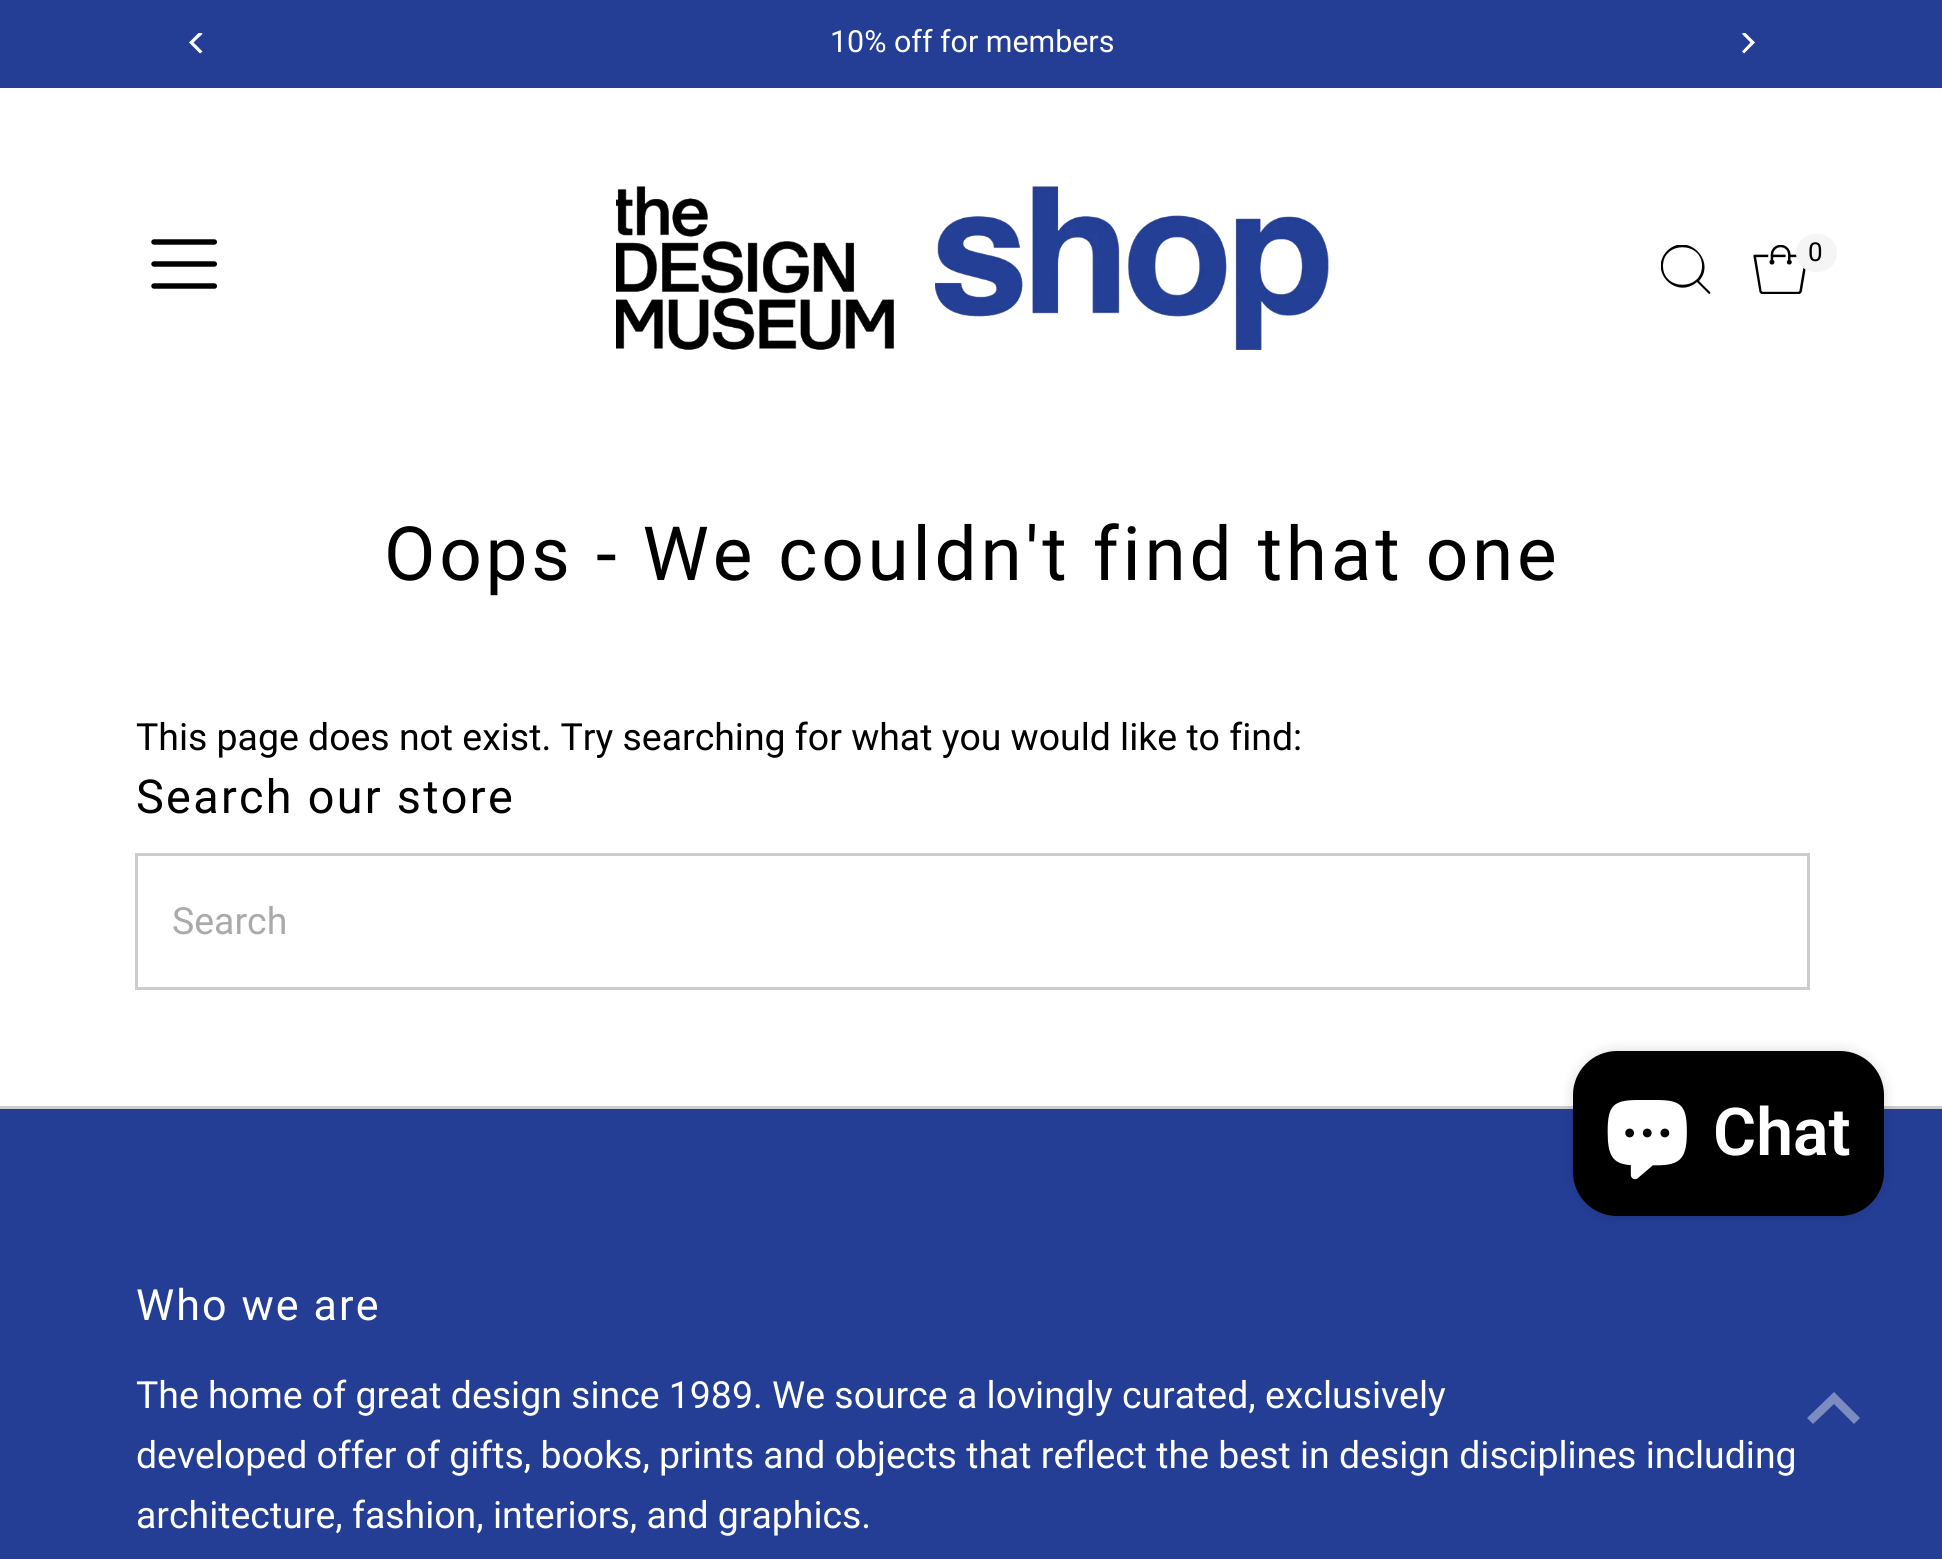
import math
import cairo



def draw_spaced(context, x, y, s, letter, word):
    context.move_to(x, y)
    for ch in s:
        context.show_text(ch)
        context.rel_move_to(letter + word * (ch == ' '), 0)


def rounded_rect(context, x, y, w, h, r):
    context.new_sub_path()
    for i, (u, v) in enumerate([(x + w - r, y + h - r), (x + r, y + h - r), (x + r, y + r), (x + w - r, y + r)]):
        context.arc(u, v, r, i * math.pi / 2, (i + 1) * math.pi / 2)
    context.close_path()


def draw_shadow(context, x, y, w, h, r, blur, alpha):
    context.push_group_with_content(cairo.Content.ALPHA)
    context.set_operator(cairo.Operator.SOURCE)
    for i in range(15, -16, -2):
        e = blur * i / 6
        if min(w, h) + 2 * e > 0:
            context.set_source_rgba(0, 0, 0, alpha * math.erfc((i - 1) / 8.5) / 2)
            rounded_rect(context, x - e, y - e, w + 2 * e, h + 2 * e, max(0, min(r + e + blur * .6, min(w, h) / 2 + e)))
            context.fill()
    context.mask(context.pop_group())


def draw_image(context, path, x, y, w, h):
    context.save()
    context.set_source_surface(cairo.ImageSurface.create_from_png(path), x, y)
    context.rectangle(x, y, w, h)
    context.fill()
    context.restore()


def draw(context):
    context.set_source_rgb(1, 1, 1)
    context.paint()
    context.set_source_rgb(36 / 255, 62 / 255, 150 / 255)
    context.rectangle(0, 0, 1942, 88)
    context.fill()
    context.save()
    context.rectangle(187, 33, 22, 22)
    context.clip()
    context.set_source_rgb(1, 1, 1)
    context.new_path()
    context.move_to(189, 42.5)
    context.line_to(200, 53.5)
    context.line_to(202.5, 51.5)
    context.line_to(193.5, 42.5)
    context.line_to(202.5, 34)
    context.line_to(200, 31.5)
    context.close_path()
    context.fill()
    context.restore()
    context.save()
    context.rectangle(1735, 33, 22, 22)
    context.clip()
    context.set_source_rgb(1, 1, 1)
    context.new_path()
    context.move_to(1755, 42.5)
    context.line_to(1744, 31.5)
    context.line_to(1742, 34)
    context.line_to(1750.5, 42.5)
    context.line_to(1742, 51.5)
    context.line_to(1744, 53.5)
    context.close_path()
    context.fill()
    context.restore()
    draw_image(context, "images/1.png", 151, 239, 66, 50)
    draw_image(context, "images/2.png", 616, 186, 713, 164)
    context.save()
    context.rectangle(1661, 245, 50, 49)
    context.clip()
    context.set_source_rgb(0, 0, 0)
    context.new_path()
    context.move_to(1710, 292)
    context.line_to(1699, 281)
    context.curve_to(1717, 261, 1687, 231, 1667, 251)
    context.curve_to(1648, 271, 1676, 300, 1697, 282)
    context.line_to(1709, 294)
    context.curve_to(1710, 294, 1711, 293, 1710, 292)
    context.close_path()
    context.move_to(1663, 266)
    context.curve_to(1663, 241, 1702, 241, 1702, 266)
    context.curve_to(1702, 291, 1663, 291, 1663, 266)
    context.close_path()
    context.fill()
    context.restore()
    draw_image(context, "images/3.png", 1753, 245, 53, 49)
    context.set_source_rgb(245 / 255, 245 / 255, 245 / 255)
    rounded_rect(context, 1796, 234, 41, 38, 19)
    context.fill()
    context.rectangle(136.5, 854.5, 1672, 134)
    context.set_source_rgb(204 / 255, 204 / 255, 204 / 255)
    context.set_line_width(3)
    context.stroke()
    context.set_source_rgb(36 / 255, 62 / 255, 150 / 255)
    context.rectangle(0, 1109, 1942, 450)
    context.fill()
    context.set_source_rgb(204 / 255, 204 / 255, 204 / 255)
    context.rectangle(0, 1106, 1942, 3)
    context.fill()
    context.set_source_rgb(124 / 255, 139 / 255, 192 / 255)
    context.new_path()
    context.move_to(1834, 1392)
    context.line_to(1807, 1418)
    context.line_to(1813, 1424)
    context.line_to(1834, 1404)
    context.line_to(1854, 1424)
    context.line_to(1860, 1418)
    context.close_path()
    context.fill()
    context.set_source_rgb(0, 0, 0)
    draw_shadow(context, 1573, 1051, 311, 165, 44, 7, 0.15)
    context.set_source_rgb(0, 0, 0)
    rounded_rect(context, 1573, 1051, 311, 165, 44)
    context.fill()
    draw_image(context, "images/4.png", 1607, 1100, 80, 80)
    context.select_font_face("Roboto")
    context.set_font_size(30.4)
    context.set_source_rgb(1, 1, 1)
    context.move_to(830, 52)
    context.show_text("10% off for members")
    context.set_font_size(26)
    context.set_source_rgb(0, 0, 0)
    context.move_to(1808, 261)
    context.show_text("0")
    context.set_font_size(74.75)
    draw_spaced(context, 384, 580, "Oops - We couldn't find that one", 3.75, 0)
    context.set_font_size(37.4)
    context.move_to(136, 750)
    context.show_text("This page does not exist. Try searching for what you would like to find:")
    context.set_font_size(46.75)
    draw_spaced(context, 136, 813, "Search our store", 2.3, 0)
    context.set_font_size(37.4)
    context.set_source_rgb(170 / 255, 170 / 255, 170 / 255)
    context.move_to(172, 934)
    context.show_text("Search")
    context.set_font_size(43)
    context.set_source_rgb(1, 1, 1)
    draw_spaced(context, 136, 1320, "Who we are", 2.1, 0)
    context.set_font_size(37.4)
    context.move_to(136, 1408)
    context.show_text("The home of great design since 1989. We source a lovingly curated, exclusively")
    context.move_to(136, 1468)
    context.show_text("developed offer of gifts, books, prints and objects that reflect the best in design disciplines including")
    context.move_to(136, 1528)
    context.show_text("architecture, fashion, interiors, and graphics.")
    context.select_font_face("Roboto SemiBold")
    context.set_font_size(66)
    context.move_to(1713, 1155)
    context.show_text("Chat")


surface = cairo.ImageSurface(cairo.Format.RGB24, 1942, 1559)
context = cairo.Context(surface)
options = cairo.FontOptions()
options.set_hint_metrics(cairo.HintMetrics.OFF)
options.set_hint_style(cairo.HintStyle.NONE)
context.set_font_options(options)
context.set_miter_limit(4)
draw(context)
surface.write_to_png("out.png")
